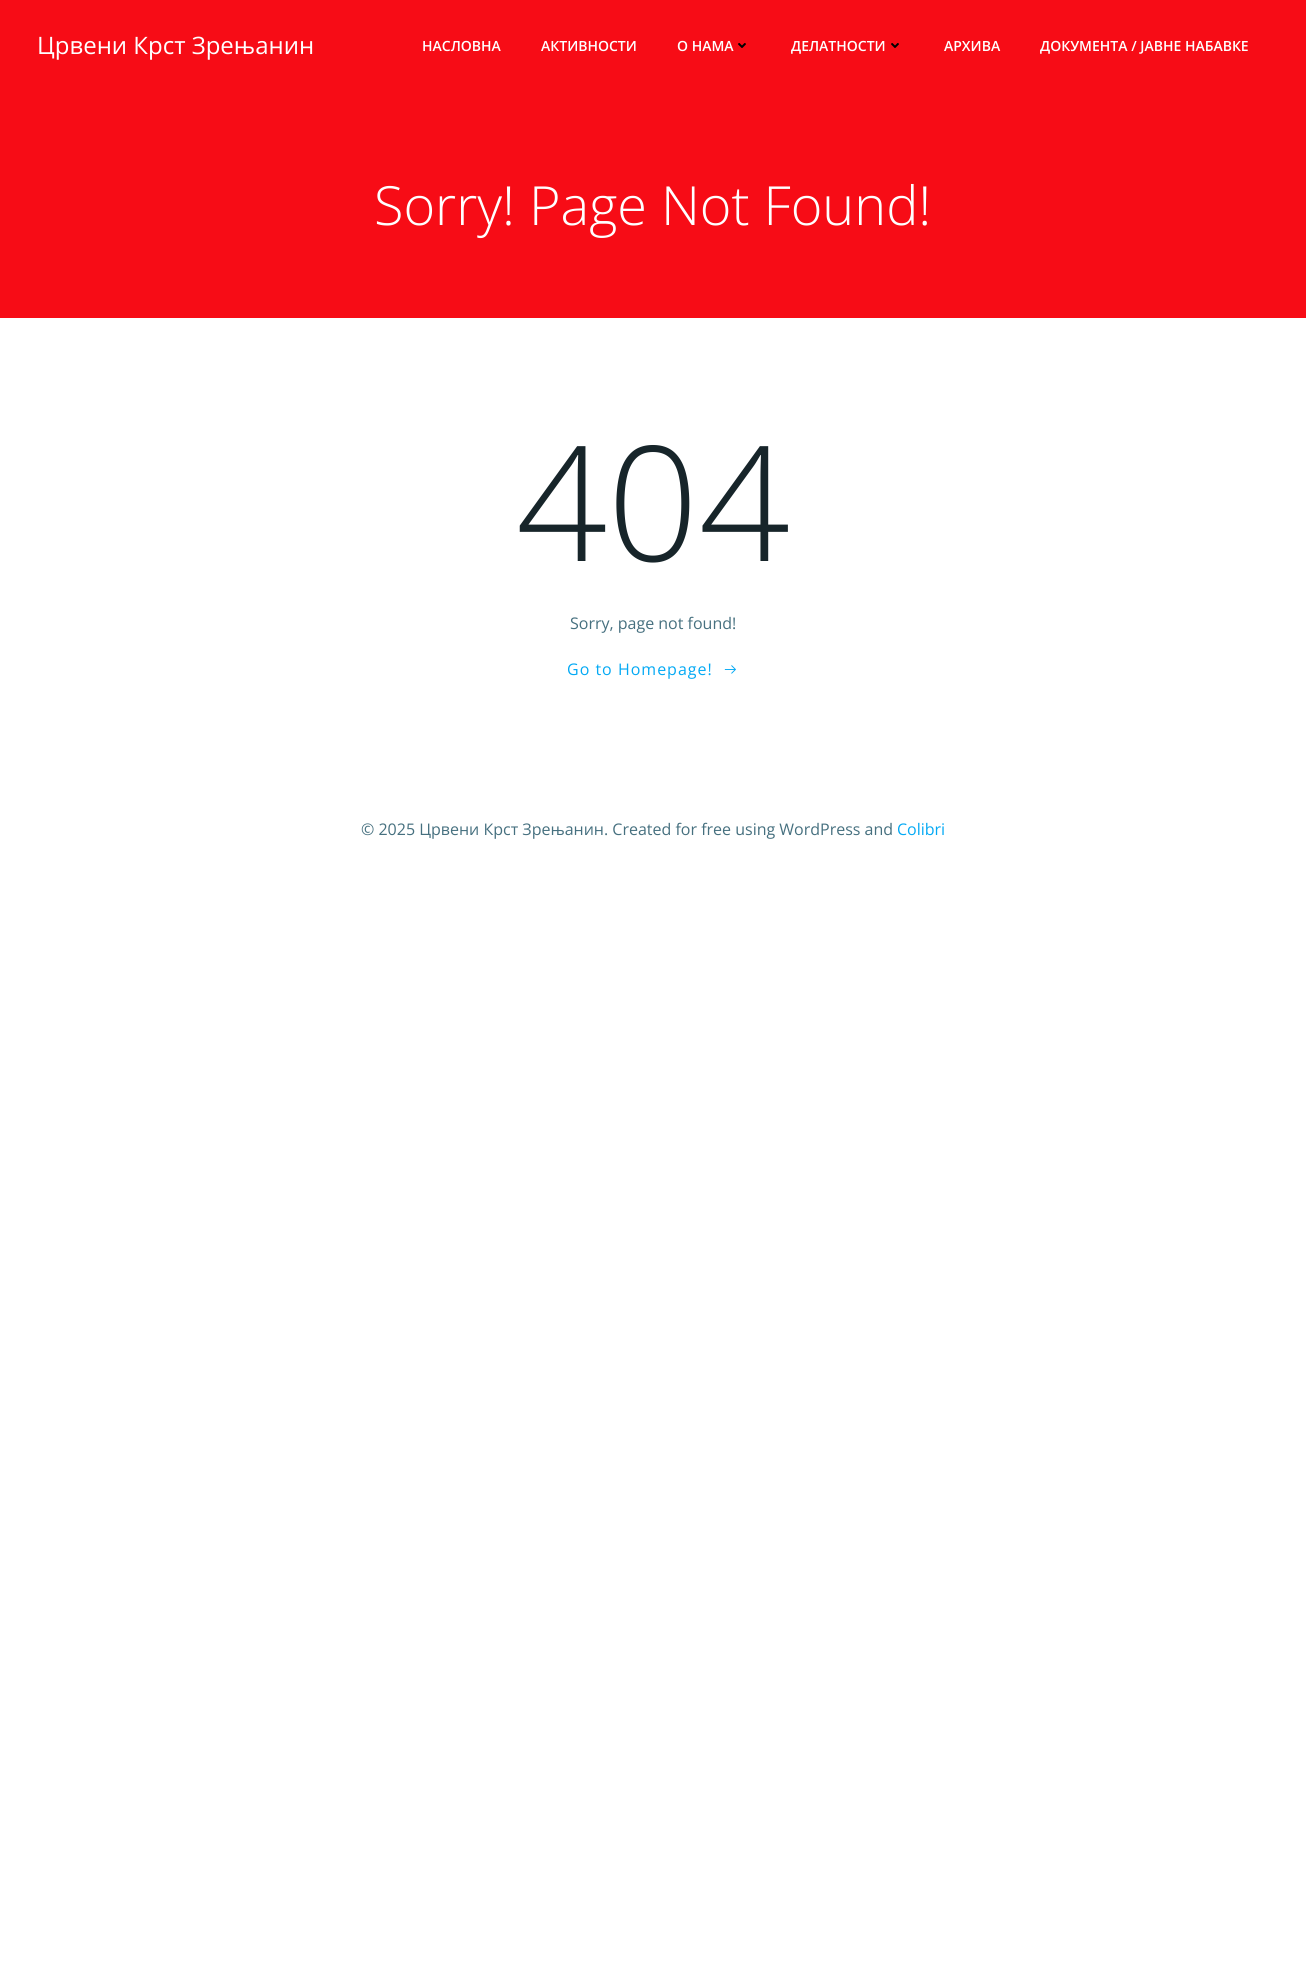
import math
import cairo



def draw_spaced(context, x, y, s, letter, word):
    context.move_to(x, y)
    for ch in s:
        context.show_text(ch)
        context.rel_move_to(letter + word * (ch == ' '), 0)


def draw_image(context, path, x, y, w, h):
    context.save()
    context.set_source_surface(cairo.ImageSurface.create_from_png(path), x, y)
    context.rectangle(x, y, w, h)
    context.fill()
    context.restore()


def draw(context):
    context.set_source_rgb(1, 1, 1)
    context.paint()
    context.set_source_rgb(247 / 255, 12 / 255, 22 / 255)
    context.rectangle(0, 0, 1306, 318)
    context.fill()
    draw_image(context, "images/1.png", 738, 43, 8, 5)
    draw_image(context, "images/1.png", 891, 43, 8, 5)
    draw_image(context, "images/2.png", 724, 665, 12, 9)
    context.select_font_face("Open Sans")
    context.set_font_size(24)
    context.set_source_rgb(1, 1, 1)
    context.move_to(37, 54)
    context.show_text("Црвени Крст Зрењанин")
    context.select_font_face("Open Sans SemiBold")
    context.set_font_size(14)
    context.move_to(422, 51)
    context.show_text("НАСЛОВНА")
    context.move_to(541, 51)
    context.show_text("АКТИВНОСТИ")
    context.move_to(677, 51)
    context.show_text("О НАМА")
    context.move_to(791, 51)
    context.show_text("ДЕЛАТНОСТИ")
    context.move_to(944, 51)
    context.show_text("АРХИВА")
    context.move_to(1040, 51)
    context.show_text("ДОКУМЕНТА / ЈАВНЕ НАБАВКЕ")
    context.select_font_face("Open Sans Light")
    context.set_font_size(54)
    context.move_to(374, 225)
    context.show_text("Sorry! Page Not Found!")
    context.set_font_size(160)
    context.set_source_rgb(23 / 255, 37 / 255, 42 / 255)
    context.move_to(516, 561)
    context.show_text("404")
    context.select_font_face("Open Sans")
    context.set_font_size(16)
    context.set_source_rgb(70 / 255, 112 / 255, 127 / 255)
    context.move_to(570, 629)
    context.show_text("Sorry, page not found!")
    context.set_source_rgb(3 / 255, 169 / 255, 244 / 255)
    draw_spaced(context, 567, 675, "Go to Homepage!", 1, 0)
    context.set_source_rgb(70 / 255, 112 / 255, 127 / 255)
    context.move_to(361, 835)
    context.show_text("© 2025 Црвени Крст Зрењанин. Created for free using WordPress and")
    context.set_source_rgb(3 / 255, 169 / 255, 244 / 255)
    context.move_to(897, 835)
    context.show_text("Colibri")


surface = cairo.ImageSurface(cairo.Format.RGB24, 1306, 1988)
context = cairo.Context(surface)
options = cairo.FontOptions()
options.set_hint_metrics(cairo.HintMetrics.OFF)
options.set_hint_style(cairo.HintStyle.NONE)
context.set_font_options(options)
context.set_miter_limit(4)
draw(context)
surface.write_to_png("out.png")
